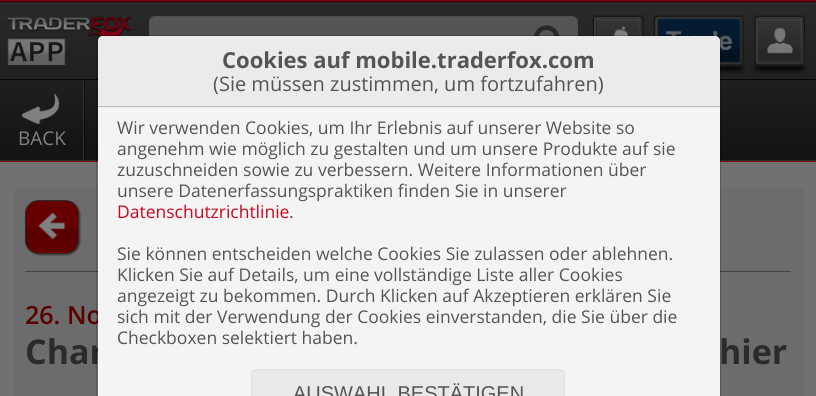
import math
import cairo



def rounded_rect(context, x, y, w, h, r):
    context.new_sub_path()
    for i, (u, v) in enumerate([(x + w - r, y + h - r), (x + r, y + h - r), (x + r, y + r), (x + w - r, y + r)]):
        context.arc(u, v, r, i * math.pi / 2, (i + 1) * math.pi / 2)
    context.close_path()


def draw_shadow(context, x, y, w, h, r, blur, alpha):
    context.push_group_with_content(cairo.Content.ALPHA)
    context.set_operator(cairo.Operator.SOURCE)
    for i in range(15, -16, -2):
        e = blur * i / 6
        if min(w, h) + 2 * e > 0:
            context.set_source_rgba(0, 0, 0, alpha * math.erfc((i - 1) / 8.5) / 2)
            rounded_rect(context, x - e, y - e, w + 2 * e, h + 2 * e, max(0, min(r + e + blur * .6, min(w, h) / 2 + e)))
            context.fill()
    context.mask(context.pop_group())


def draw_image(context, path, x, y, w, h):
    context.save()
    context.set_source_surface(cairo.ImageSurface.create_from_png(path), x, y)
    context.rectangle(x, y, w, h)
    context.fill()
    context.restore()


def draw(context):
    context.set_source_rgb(113 / 255, 113 / 255, 113 / 255)
    context.paint()
    context.set_source_rgb(126 / 255, 0, 25 / 255)
    context.rectangle(0, 0, 816, 1)
    context.fill()
    context.rectangle(0, 161, 816, 1)
    context.fill()
    context.set_source_rgb(44 / 255, 44 / 255, 44 / 255)
    context.rectangle(0, 160, 816, 1)
    context.fill()
    context.set_source_rgb(13 / 255, 13 / 255, 13 / 255)
    context.rectangle(84, 160, 1, 1)
    context.fill()
    context.set_source_rgb(64 / 255, 64 / 255, 64 / 255)
    context.rectangle(83, 160, 1, 1)
    context.fill()
    gradient = cairo.LinearGradient(408, -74, 408, 2.5)
    gradient.add_color_stop_rgba(0, 42 / 255, 42 / 255, 42 / 255, 1)
    gradient.add_color_stop_rgba(0.66, 35 / 255, 35 / 255, 35 / 255, 1)
    gradient.add_color_stop_rgba(1, 32 / 255, 32 / 255, 32 / 255, 1)
    context.set_source(gradient)
    context.rectangle(0, 2, 816, 1)
    context.fill()
    gradient = cairo.LinearGradient(408, 2.5, 408, 79)
    gradient.add_color_stop_rgba(0, 42 / 255, 42 / 255, 42 / 255, 1)
    gradient.add_color_stop_rgba(0.66, 35 / 255, 35 / 255, 35 / 255, 1)
    gradient.add_color_stop_rgba(1, 32 / 255, 32 / 255, 32 / 255, 1)
    context.set_source(gradient)
    context.rectangle(0, 3, 816, 76)
    context.fill()
    context.set_source_rgb(81 / 255, 0, 0)
    context.rectangle(0, 1, 816, 1)
    context.fill()
    draw_image(context, "images/1.png", 6, 16, 126, 49)
    context.set_source_rgb(85 / 255, 85 / 255, 85 / 255)
    rounded_rect(context, 149.5, 16.5, 428, 49, 5.5)
    context.fill_preserve()
    context.set_source_rgb(79 / 255, 79 / 255, 79 / 255)
    context.set_line_width(1)
    context.stroke()
    draw_image(context, "images/2.png", 534, 25, 25, 11)
    draw_image(context, "images/3.png", 591, 15, 54, 21)
    draw_image(context, "images/4.png", 652, 15, 93, 59)
    draw_image(context, "images/5.png", 751, 15, 56, 59)
    gradient = cairo.LinearGradient(408, 80, 408, 160)
    gradient.add_color_stop_rgba(0, 31 / 255, 31 / 255, 31 / 255, 1)
    gradient.add_color_stop_rgba(0.66, 22 / 255, 22 / 255, 22 / 255, 1)
    gradient.add_color_stop_rgba(1, 19 / 255, 19 / 255, 19 / 255, 1)
    context.set_source(gradient)
    context.rectangle(0, 80, 816, 80)
    context.fill()
    gradient = cairo.LinearGradient(408, 80, 408, 160)
    gradient.add_color_stop_rgba(0, 10 / 255, 10 / 255, 10 / 255, 1)
    gradient.add_color_stop_rgba(0.66, 7 / 255, 7 / 255, 7 / 255, 1)
    gradient.add_color_stop_rgba(1, 6 / 255, 6 / 255, 6 / 255, 1)
    context.set_source(gradient)
    context.rectangle(84, 80, 1, 80)
    context.fill()
    gradient = cairo.LinearGradient(408, 80, 408, 160)
    gradient.add_color_stop_rgba(0, 55 / 255, 55 / 255, 55 / 255, 1)
    gradient.add_color_stop_rgba(0.66, 48 / 255, 48 / 255, 48 / 255, 1)
    gradient.add_color_stop_rgba(1, 46 / 255, 46 / 255, 46 / 255, 1)
    context.set_source(gradient)
    context.rectangle(83, 80, 1, 80)
    context.fill()
    context.set_source_rgb(6 / 255, 6 / 255, 6 / 255)
    context.rectangle(0, 79, 816, 1)
    context.fill()
    draw_image(context, "images/6.png", 21, 93, 39, 31)
    context.set_source_rgb(108 / 255, 108 / 255, 108 / 255)
    rounded_rect(context, 13, 188, 791, 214, 6)
    context.fill()
    context.set_source_rgb(68 / 255, 68 / 255, 68 / 255)
    context.rectangle(25, 271, 766, 1)
    context.fill()
    context.set_source_rgb(0, 0, 0)
    draw_shadow(context, 26, 201, 54, 54, 14, 1, 0.5)
    context.save()
    rounded_rect(context, 25, 200, 54, 54, 14)
    context.clip()
    gradient = cairo.LinearGradient(52, 201, 52, 253)
    gradient.add_color_stop_rgba(0, 102 / 255, 0, 0, 1)
    gradient.add_color_stop_rgba(0.52, 102 / 255, 0, 0, 1)
    gradient.add_color_stop_rgba(0.52, 91 / 255, 0, 0, 1)
    gradient.add_color_stop_rgba(1, 92 / 255, 0, 0, 1)
    context.set_source(gradient)
    context.rectangle(25, 201, 54, 52)
    context.fill()
    context.restore()
    context.set_source_rgb(128 / 255, 0, 0)
    context.new_path()
    context.move_to(26, 240)
    context.curve_to(26, 255, 42, 253, 52, 253)
    context.curve_to(62, 253, 78, 255, 78, 240)
    context.curve_to(78, 254, 61, 252, 52, 252)
    context.curve_to(43, 252, 26, 254, 26, 240)
    context.close_path()
    context.fill()
    rounded_rect(context, 25.5, 200.5, 53, 53, 13.5)
    context.set_source_rgb(43 / 255, 43 / 255, 43 / 255)
    context.stroke()
    draw_image(context, "images/7.png", 38, 212, 27, 28)
    context.select_font_face("Open Sans")
    context.set_font_size(19)
    context.set_source_rgb(128 / 255, 128 / 255, 128 / 255)
    context.move_to(18, 145)
    context.show_text("BACK")
    context.select_font_face("Open Sans SemiBold")
    context.set_font_size(25)
    context.set_source_rgb(90 / 255, 0, 0)
    context.move_to(25, 324)
    context.show_text("26. No")
    context.select_font_face("Open Sans", cairo.FontSlant.NORMAL, cairo.FontWeight.BOLD)
    context.set_font_size(34)
    context.set_source_rgb(43 / 255, 43 / 255, 43 / 255)
    context.move_to(25, 364)
    context.show_text("Char")
    context.set_source_rgb(244 / 255, 244 / 255, 244 / 255)
    context.new_path()
    context.move_to(103, 36)
    context.line_to(715, 36)
    context.curve_to(718, 36, 720, 38, 720, 41)
    context.line_to(720, 396)
    context.line_to(98, 396)
    context.line_to(98, 41)
    context.curve_to(98, 38, 100, 36, 103, 36)
    context.close_path()
    context.fill()
    rounded_rect(context, 96.5, 35.5, 624, 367, 5.5)
    context.set_source_rgba(0, 0, 0, 0.2)
    context.stroke()
    context.select_font_face("Open Sans")
    context.set_font_size(17.5)
    context.set_source_rgb(85 / 255, 85 / 255, 85 / 255)
    context.move_to(117, 344)
    context.show_text("Checkboxen selektiert haben.")
    context.move_to(117, 323)
    context.show_text("sich mit der Verwendung der Cookies einverstanden, die Sie über die")
    context.move_to(117, 302)
    context.show_text("angezeigt zu bekommen. Durch Klicken auf Akzeptieren erklären Sie")
    context.move_to(117, 281)
    context.show_text("Klicken Sie auf Details, um eine vollständige Liste aller Cookies")
    context.move_to(117, 260)
    context.show_text("Sie können entscheiden welche Cookies Sie zulassen oder ablehnen.")
    context.move_to(289, 218)
    context.show_text(".")
    context.set_source_rgb(204 / 255, 7 / 255, 30 / 255)
    context.move_to(117, 218)
    context.show_text("Datenschutzrichtlinie")
    context.set_source_rgb(85 / 255, 85 / 255, 85 / 255)
    context.move_to(117, 197)
    context.show_text("unsere Datenerfassungspraktiken finden Sie in unserer")
    context.move_to(117, 176)
    context.show_text("zuzuschneiden sowie zu verbessern. Weitere Informationen über")
    context.move_to(117, 155)
    context.show_text("angenehm wie möglich zu gestalten und um unsere Produkte auf sie")
    context.move_to(117, 134)
    context.show_text("Wir verwenden Cookies, um Ihr Erlebnis auf unserer Website so")
    context.set_source_rgb(233 / 255, 233 / 255, 233 / 255)
    context.new_path()
    context.move_to(256, 369)
    context.line_to(560, 369)
    context.curve_to(563, 369, 565, 371, 565, 374)
    context.line_to(565, 396)
    context.line_to(251, 396)
    context.line_to(251, 374)
    context.curve_to(251, 371, 253, 369, 256, 369)
    context.close_path()
    context.fill()
    rounded_rect(context, 251.5, 369.5, 313, 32, 4.5)
    context.set_source_rgb(224 / 255, 224 / 255, 224 / 255)
    context.stroke()
    context.select_font_face("Liberation Sans")
    context.set_font_size(20)
    context.set_source_rgb(85 / 255, 85 / 255, 85 / 255)
    context.move_to(293, 400)
    context.show_text("AUSWAHL BESTÄTIGEN")
    context.set_source_rgb(235 / 255, 235 / 255, 235 / 255)
    context.new_path()
    context.move_to(104, 36)
    context.line_to(714, 36)
    context.curve_to(717.5, 36, 720, 38.5, 720, 42)
    context.line_to(720, 108)
    context.line_to(98, 108)
    context.line_to(98, 42)
    context.curve_to(98, 38.5, 100.5, 36, 104, 36)
    context.close_path()
    context.fill()
    context.select_font_face("Open Sans")
    context.set_source_rgb(85 / 255, 85 / 255, 85 / 255)
    context.move_to(213, 91)
    context.show_text("(Sie müssen zustimmen, um fortzufahren)")
    context.select_font_face("Open Sans", cairo.FontSlant.NORMAL, cairo.FontWeight.BOLD)
    context.set_font_size(22)
    context.move_to(222, 68)
    context.show_text("Cookies auf mobile.traderfox.com")
    context.set_source_rgb(188 / 255, 188 / 255, 188 / 255)
    context.rectangle(98, 106, 622, 1)
    context.fill()
    context.set_font_size(34)
    context.set_source_rgb(43 / 255, 43 / 255, 43 / 255)
    context.move_to(719, 364)
    context.show_text("hier")


surface = cairo.ImageSurface(cairo.Format.RGB24, 816, 396)
context = cairo.Context(surface)
options = cairo.FontOptions()
options.set_hint_metrics(cairo.HintMetrics.OFF)
options.set_hint_style(cairo.HintStyle.NONE)
context.set_font_options(options)
context.set_miter_limit(4)
draw(context)
surface.write_to_png("out.png")
